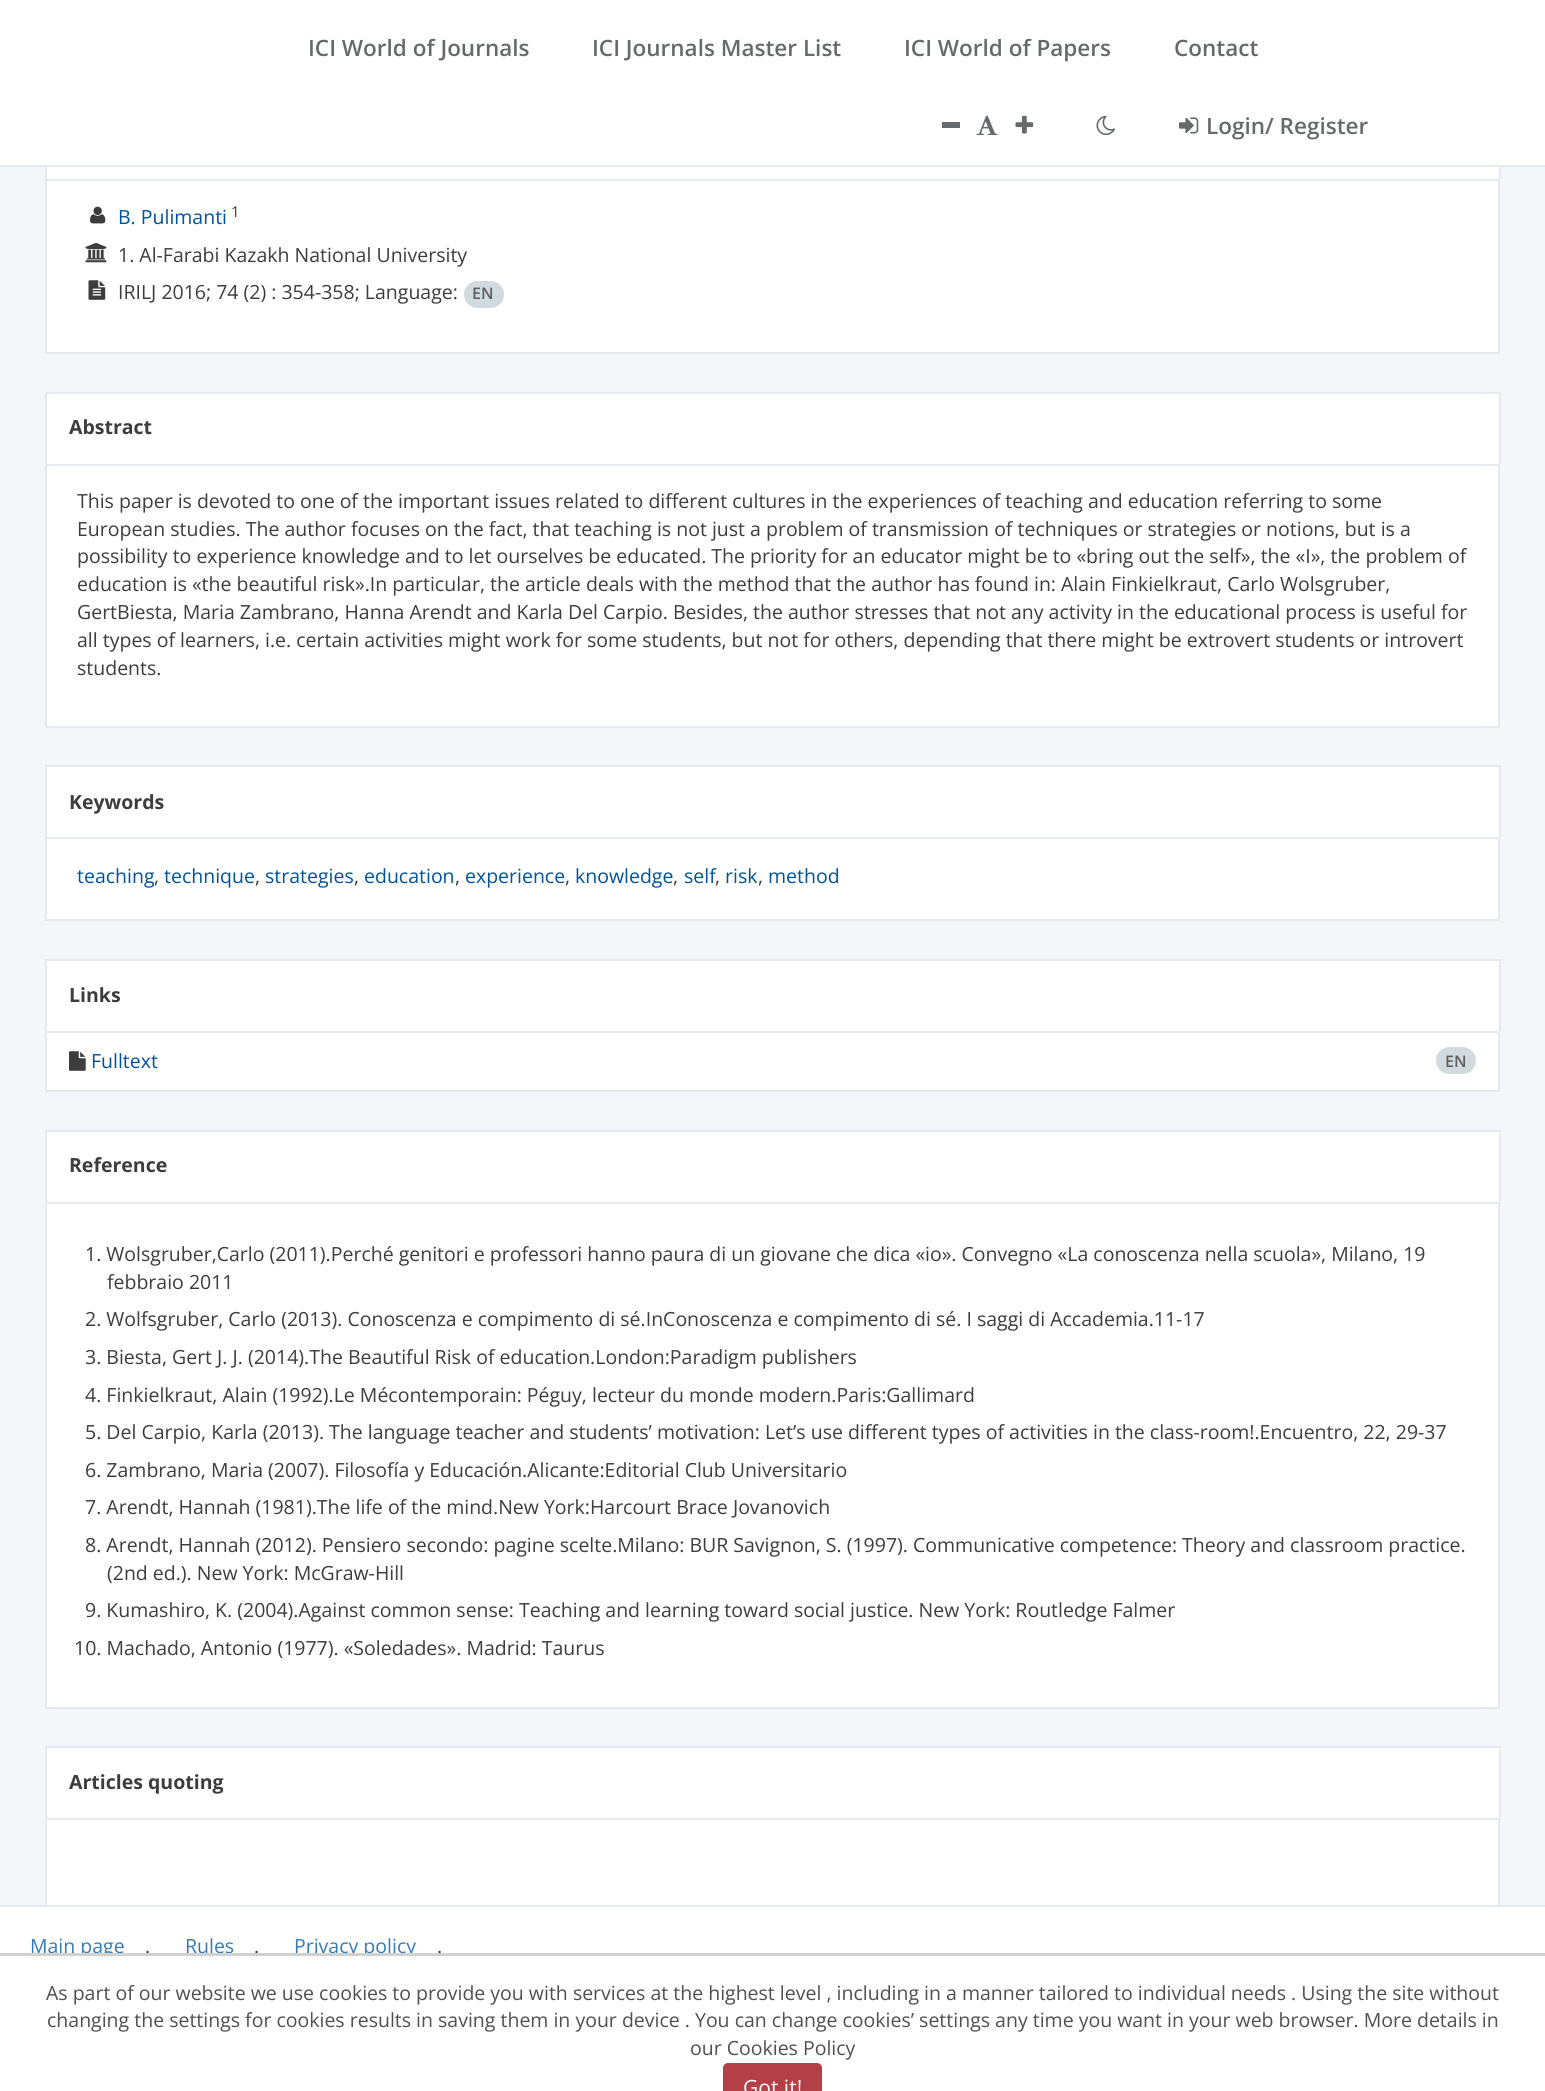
import math
import cairo



def rounded_rect(context, x, y, w, h, r):
    context.new_sub_path()
    for i, (u, v) in enumerate([(x + w - r, y + h - r), (x + r, y + h - r), (x + r, y + r), (x + w - r, y + r)]):
        context.arc(u, v, r, i * math.pi / 2, (i + 1) * math.pi / 2)
    context.close_path()


def draw_image(context, path, x, y, w, h):
    context.save()
    context.set_source_surface(cairo.ImageSurface.create_from_png(path), x, y)
    context.rectangle(x, y, w, h)
    context.fill()
    context.restore()


def draw(context):
    context.set_source_rgb(244 / 255, 246 / 255, 250 / 255)
    context.paint()
    context.set_source_rgb(1, 1, 1)
    context.rectangle(0, 0, 1545, 165)
    context.fill()
    context.set_source_rgb(231 / 255, 234 / 255, 236 / 255)
    context.rectangle(0, 165, 1545, 2)
    context.fill()
    context.set_source_rgb(103 / 255, 106 / 255, 108 / 255)
    context.rectangle(942, 122, 18, 6)
    context.fill()
    draw_image(context, "images/1.png", 976, 115, 22, 21)
    draw_image(context, "images/2.png", 1015, 115, 19, 19)
    draw_image(context, "images/3.png", 1096, 115, 19, 21)
    draw_image(context, "images/4.png", 1179, 117, 20, 17)
    context.set_source_rgb(1, 1, 1)
    context.rectangle(47, 167, 1452, 12)
    context.fill()
    context.set_source_rgb(231 / 255, 234 / 255, 236 / 255)
    context.rectangle(1499, 167, 2, 12)
    context.fill()
    context.rectangle(45, 167, 2, 12)
    context.fill()
    context.set_source_rgb(1, 1, 1)
    context.rectangle(46, 180, 1453, 173)
    context.fill_preserve()
    context.set_source_rgb(231 / 255, 234 / 255, 236 / 255)
    context.stroke()
    draw_image(context, "images/5.png", 90, 206, 16, 18)
    draw_image(context, "images/6.png", 85, 242, 22, 21)
    draw_image(context, "images/7.png", 88, 280, 18, 20)
    context.set_source_rgb(209 / 255, 218 / 255, 222 / 255)
    rounded_rect(context, 464, 281, 40, 27, 13.5)
    context.fill()
    context.set_source_rgb(1, 1, 1)
    context.rectangle(47, 394, 1452, 70)
    context.fill()
    context.set_source_rgb(231 / 255, 234 / 255, 236 / 255)
    context.rectangle(45, 392, 1455, 2)
    context.fill()
    context.rectangle(1499, 392, 2, 72)
    context.fill()
    context.rectangle(45, 392, 2, 72)
    context.fill()
    context.set_source_rgb(1, 1, 1)
    context.rectangle(46, 465, 1453, 262)
    context.fill_preserve()
    context.set_source_rgb(231 / 255, 234 / 255, 236 / 255)
    context.stroke()
    context.set_source_rgb(1, 1, 1)
    context.rectangle(47, 767, 1452, 70)
    context.fill()
    context.set_source_rgb(231 / 255, 234 / 255, 236 / 255)
    context.rectangle(45, 765, 1455, 2)
    context.fill()
    context.rectangle(1499, 765, 2, 72)
    context.fill()
    context.rectangle(45, 765, 2, 72)
    context.fill()
    context.set_source_rgb(1, 1, 1)
    context.rectangle(46, 838, 1453, 82)
    context.fill_preserve()
    context.set_source_rgb(231 / 255, 234 / 255, 236 / 255)
    context.stroke()
    context.set_source_rgb(1, 1, 1)
    context.rectangle(47, 961, 1452, 70)
    context.fill()
    context.set_source_rgb(231 / 255, 234 / 255, 236 / 255)
    context.rectangle(45, 959, 1455, 2)
    context.fill()
    context.rectangle(1499, 959, 2, 72)
    context.fill()
    context.rectangle(45, 959, 2, 72)
    context.fill()
    context.set_source_rgb(1, 1, 1)
    context.rectangle(46, 1032, 1453, 59)
    context.fill_preserve()
    context.set_source_rgb(231 / 255, 234 / 255, 236 / 255)
    context.stroke()
    draw_image(context, "images/8.png", 69, 1051, 17, 20)
    context.set_source_rgb(209 / 255, 218 / 255, 222 / 255)
    rounded_rect(context, 1436, 1047, 40, 27, 13.5)
    context.fill()
    context.set_source_rgb(1, 1, 1)
    context.rectangle(47, 1132, 1452, 70)
    context.fill()
    context.set_source_rgb(231 / 255, 234 / 255, 236 / 255)
    context.rectangle(45, 1130, 1455, 2)
    context.fill()
    context.rectangle(1499, 1130, 2, 72)
    context.fill()
    context.rectangle(45, 1130, 2, 72)
    context.fill()
    context.set_source_rgb(1, 1, 1)
    context.rectangle(46, 1203, 1453, 505)
    context.fill_preserve()
    context.set_source_rgb(231 / 255, 234 / 255, 236 / 255)
    context.stroke()
    context.set_source_rgb(1, 1, 1)
    context.rectangle(47, 1748, 1452, 70)
    context.fill()
    context.set_source_rgb(231 / 255, 234 / 255, 236 / 255)
    context.rectangle(45, 1746, 1455, 2)
    context.fill()
    context.rectangle(1499, 1746, 2, 72)
    context.fill()
    context.rectangle(45, 1746, 2, 72)
    context.fill()
    context.set_source_rgb(1, 1, 1)
    context.rectangle(47, 1820, 1451, 85)
    context.fill()
    context.rectangle(46, 1819, 1453, 121)
    context.set_source_rgb(231 / 255, 234 / 255, 236 / 255)
    context.stroke()
    context.set_source_rgb(1, 1, 1)
    context.rectangle(0, 1907, 1545, 184)
    context.fill()
    context.set_source_rgb(231 / 255, 234 / 255, 236 / 255)
    context.rectangle(0, 1905, 1545, 2)
    context.fill()
    context.set_source_rgb(179 / 255, 64 / 255, 70 / 255)
    rounded_rect(context, 723, 2063, 99, 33, 5)
    context.fill()
    context.select_font_face("Open Sans SemiBold")
    context.set_font_size(22.5)
    context.set_source_rgb(103 / 255, 106 / 255, 108 / 255)
    context.move_to(308, 56)
    context.show_text("ICI World of Journals")
    context.move_to(592, 56)
    context.show_text("ICI Journals Master List")
    context.move_to(904, 56)
    context.show_text("ICI World of Papers")
    context.move_to(1174, 56)
    context.show_text("Contact")
    context.move_to(1206, 134)
    context.show_text("Login/ Register")
    context.select_font_face("Open Sans")
    context.set_font_size(19.5)
    context.set_source_rgb(0, 83 / 255, 155 / 255)
    context.move_to(118, 224)
    context.show_text("B. Pulimanti")
    context.set_font_size(15)
    context.set_source_rgb(61 / 255, 61 / 255, 61 / 255)
    context.move_to(231, 217)
    context.show_text("1")
    context.set_font_size(19.5)
    context.move_to(118, 262)
    context.show_text("1. Al-Farabi Kazakh National University")
    context.move_to(118, 299)
    context.show_text("IRILJ 2016; 74 (2) : 354-358; Language:")
    context.select_font_face("Open Sans SemiBold")
    context.set_font_size(16)
    context.set_source_rgb(94 / 255, 94 / 255, 94 / 255)
    context.move_to(472, 299)
    context.show_text("EN")
    context.select_font_face("Open Sans", cairo.FontSlant.NORMAL, cairo.FontWeight.BOLD)
    context.set_font_size(19.5)
    context.set_source_rgb(61 / 255, 61 / 255, 61 / 255)
    context.move_to(69, 434)
    context.show_text("Abstract")
    context.select_font_face("Open Sans")
    context.move_to(77, 508)
    context.show_text("This paper is devoted to one of the important issues related to different cultures in the experiences of teaching and education referring to some")
    context.move_to(77, 536)
    context.show_text("European studies. The author focuses on the fact, that teaching is not just a problem of transmission of techniques or strategies or notions, but is a")
    context.move_to(77, 563)
    context.show_text("possibility to experience knowledge and to let ourselves be educated. The priority for an educator might be to «bring out the self», the «I», the problem of")
    context.move_to(77, 591)
    context.show_text("education is «the beautiful risk».In particular, the article deals with the method that the author has found in: Alain Finkielkraut, Carlo Wolsgruber,")
    context.move_to(77, 619)
    context.show_text("GertBiesta, Maria Zambrano, Hanna Arendt and Karla Del Carpio. Besides, the author stresses that not any activity in the educational process is useful for")
    context.move_to(77, 647)
    context.show_text("all types of learners, i.e. certain activities might work for some students, but not for others, depending that there might be extrovert students or introvert")
    context.move_to(77, 675)
    context.show_text("students.")
    context.select_font_face("Open Sans", cairo.FontSlant.NORMAL, cairo.FontWeight.BOLD)
    context.move_to(69, 809)
    context.show_text("Keywords")
    context.select_font_face("Open Sans")
    context.set_source_rgb(0, 83 / 255, 155 / 255)
    context.move_to(77, 883)
    context.show_text("teaching")
    context.set_source_rgb(61 / 255, 61 / 255, 61 / 255)
    context.move_to(154, 883)
    context.show_text(",")
    context.set_source_rgb(0, 83 / 255, 155 / 255)
    context.move_to(164, 883)
    context.show_text("technique")
    context.set_source_rgb(61 / 255, 61 / 255, 61 / 255)
    context.move_to(255, 883)
    context.show_text(",")
    context.set_source_rgb(0, 83 / 255, 155 / 255)
    context.move_to(265, 883)
    context.show_text("strategies")
    context.set_source_rgb(61 / 255, 61 / 255, 61 / 255)
    context.move_to(354, 883)
    context.show_text(",")
    context.set_source_rgb(0, 83 / 255, 155 / 255)
    context.move_to(364, 883)
    context.show_text("education")
    context.set_source_rgb(61 / 255, 61 / 255, 61 / 255)
    context.move_to(455, 883)
    context.show_text(",")
    context.set_source_rgb(0, 83 / 255, 155 / 255)
    context.move_to(465, 883)
    context.show_text("experience")
    context.set_source_rgb(61 / 255, 61 / 255, 61 / 255)
    context.move_to(565, 883)
    context.show_text(",")
    context.set_source_rgb(0, 83 / 255, 155 / 255)
    context.move_to(575, 883)
    context.show_text("knowledge")
    context.set_source_rgb(61 / 255, 61 / 255, 61 / 255)
    context.move_to(673, 883)
    context.show_text(",")
    context.set_source_rgb(0, 83 / 255, 155 / 255)
    context.move_to(684, 883)
    context.show_text("self")
    context.set_source_rgb(61 / 255, 61 / 255, 61 / 255)
    context.move_to(715, 883)
    context.show_text(",")
    context.set_source_rgb(0, 83 / 255, 155 / 255)
    context.move_to(725, 883)
    context.show_text("risk")
    context.set_source_rgb(61 / 255, 61 / 255, 61 / 255)
    context.move_to(758, 883)
    context.show_text(",")
    context.set_source_rgb(0, 83 / 255, 155 / 255)
    context.move_to(768, 883)
    context.show_text("method")
    context.select_font_face("Open Sans", cairo.FontSlant.NORMAL, cairo.FontWeight.BOLD)
    context.set_source_rgb(61 / 255, 61 / 255, 61 / 255)
    context.move_to(69, 1002)
    context.show_text("Links")
    context.select_font_face("Open Sans")
    context.set_source_rgb(0, 83 / 255, 155 / 255)
    context.move_to(91, 1068)
    context.show_text("Fulltext")
    context.select_font_face("Open Sans SemiBold")
    context.set_font_size(16)
    context.set_source_rgb(94 / 255, 94 / 255, 94 / 255)
    context.move_to(1445, 1067)
    context.show_text("EN")
    context.select_font_face("Open Sans", cairo.FontSlant.NORMAL, cairo.FontWeight.BOLD)
    context.set_font_size(19.5)
    context.set_source_rgb(61 / 255, 61 / 255, 61 / 255)
    context.move_to(69, 1172)
    context.show_text("Reference")
    context.select_font_face("Open Sans")
    context.move_to(85, 1261)
    context.show_text("1. Wolsgruber,Carlo (2011).Perché genitori e professori hanno paura di un giovane che dica «io». Convegno «La conoscenza nella scuola», Milano, 19")
    context.move_to(107, 1289)
    context.show_text("febbraio 2011")
    context.move_to(85, 1326)
    context.show_text("2. Wolfsgruber, Carlo (2013). Conoscenza e compimento di sé.InConoscenza e compimento di sé. I saggi di Accademia.11-17")
    context.move_to(85, 1364)
    context.show_text("3. Biesta, Gert J. J. (2014).The Beautiful Risk of education.London:Paradigm publishers")
    context.move_to(85, 1402)
    context.show_text("4. Finkielkraut, Alain (1992).Le Mécontemporain: Péguy, lecteur du monde modern.Paris:Gallimard")
    context.move_to(85, 1439)
    context.show_text("5. Del Carpio, Karla (2013). The language teacher and students’ motivation: Let’s use different types of activities in the class-room!.Encuentro, 22, 29-37")
    context.move_to(85, 1477)
    context.show_text("6. Zambrano, Maria (2007). Filosofía y Educación.Alicante:Editorial Club Universitario")
    context.move_to(85, 1514)
    context.show_text("7. Arendt, Hannah (1981).The life of the mind.New York:Harcourt Brace Jovanovich")
    context.move_to(85, 1552)
    context.show_text("8. Arendt, Hannah (2012). Pensiero secondo: pagine scelte.Milano: BUR Savignon, S. (1997). Communicative competence: Theory and classroom practice.")
    context.move_to(107, 1580)
    context.show_text("(2nd ed.). New York: McGraw-Hill")
    context.move_to(85, 1617)
    context.show_text("9. Kumashiro, K. (2004).Against common sense: Teaching and learning toward social justice. New York: Routledge Falmer")
    context.move_to(74, 1655)
    context.show_text("10. Machado, Antonio (1977). «Soledades». Madrid: Taurus")
    context.select_font_face("Open Sans", cairo.FontSlant.NORMAL, cairo.FontWeight.BOLD)
    context.move_to(69, 1789)
    context.show_text("Articles quoting")
    context.select_font_face("Open Sans")
    context.set_source_rgb(51 / 255, 122 / 255, 183 / 255)
    context.move_to(30, 1953)
    context.show_text("Main page")
    context.set_source_rgb(61 / 255, 61 / 255, 61 / 255)
    context.move_to(145, 1953)
    context.show_text(".")
    context.set_source_rgb(51 / 255, 122 / 255, 183 / 255)
    context.move_to(185, 1953)
    context.show_text("Rules")
    context.set_source_rgb(61 / 255, 61 / 255, 61 / 255)
    context.move_to(254, 1953)
    context.show_text(".")
    context.set_source_rgb(51 / 255, 122 / 255, 183 / 255)
    context.move_to(294, 1953)
    context.show_text("Privacy policy")
    context.set_source_rgb(61 / 255, 61 / 255, 61 / 255)
    context.move_to(437, 1953)
    context.show_text(".")
    context.set_source_rgba(1, 1, 1, 0.9)
    context.rectangle(50, 1953, 390, 5)
    context.fill()
    context.set_source_rgba(204 / 255, 204 / 255, 204 / 255, 0.9)
    context.rectangle(0, 1953, 1545, 3)
    context.fill()
    context.set_source_rgb(80 / 255, 80 / 255, 80 / 255)
    context.move_to(46, 2000)
    context.show_text("As part of our website we use cookies to provide you with services at the highest level , including in a manner tailored to individual needs . Using the site without")
    context.move_to(47, 2027)
    context.show_text("changing the settings for cookies results in saving them in your device . You can change cookies’ settings any time you want in your web browser. More details in")
    context.move_to(690, 2055)
    context.show_text("our Cookies Policy")
    context.set_font_size(21)
    context.set_source_rgb(1, 1, 1)
    context.move_to(743, 2095)
    context.show_text("Got it!")


surface = cairo.ImageSurface(cairo.Format.RGB24, 1545, 2091)
context = cairo.Context(surface)
options = cairo.FontOptions()
options.set_hint_metrics(cairo.HintMetrics.OFF)
options.set_hint_style(cairo.HintStyle.NONE)
context.set_font_options(options)
context.set_miter_limit(4)
draw(context)
surface.write_to_png("out.png")
